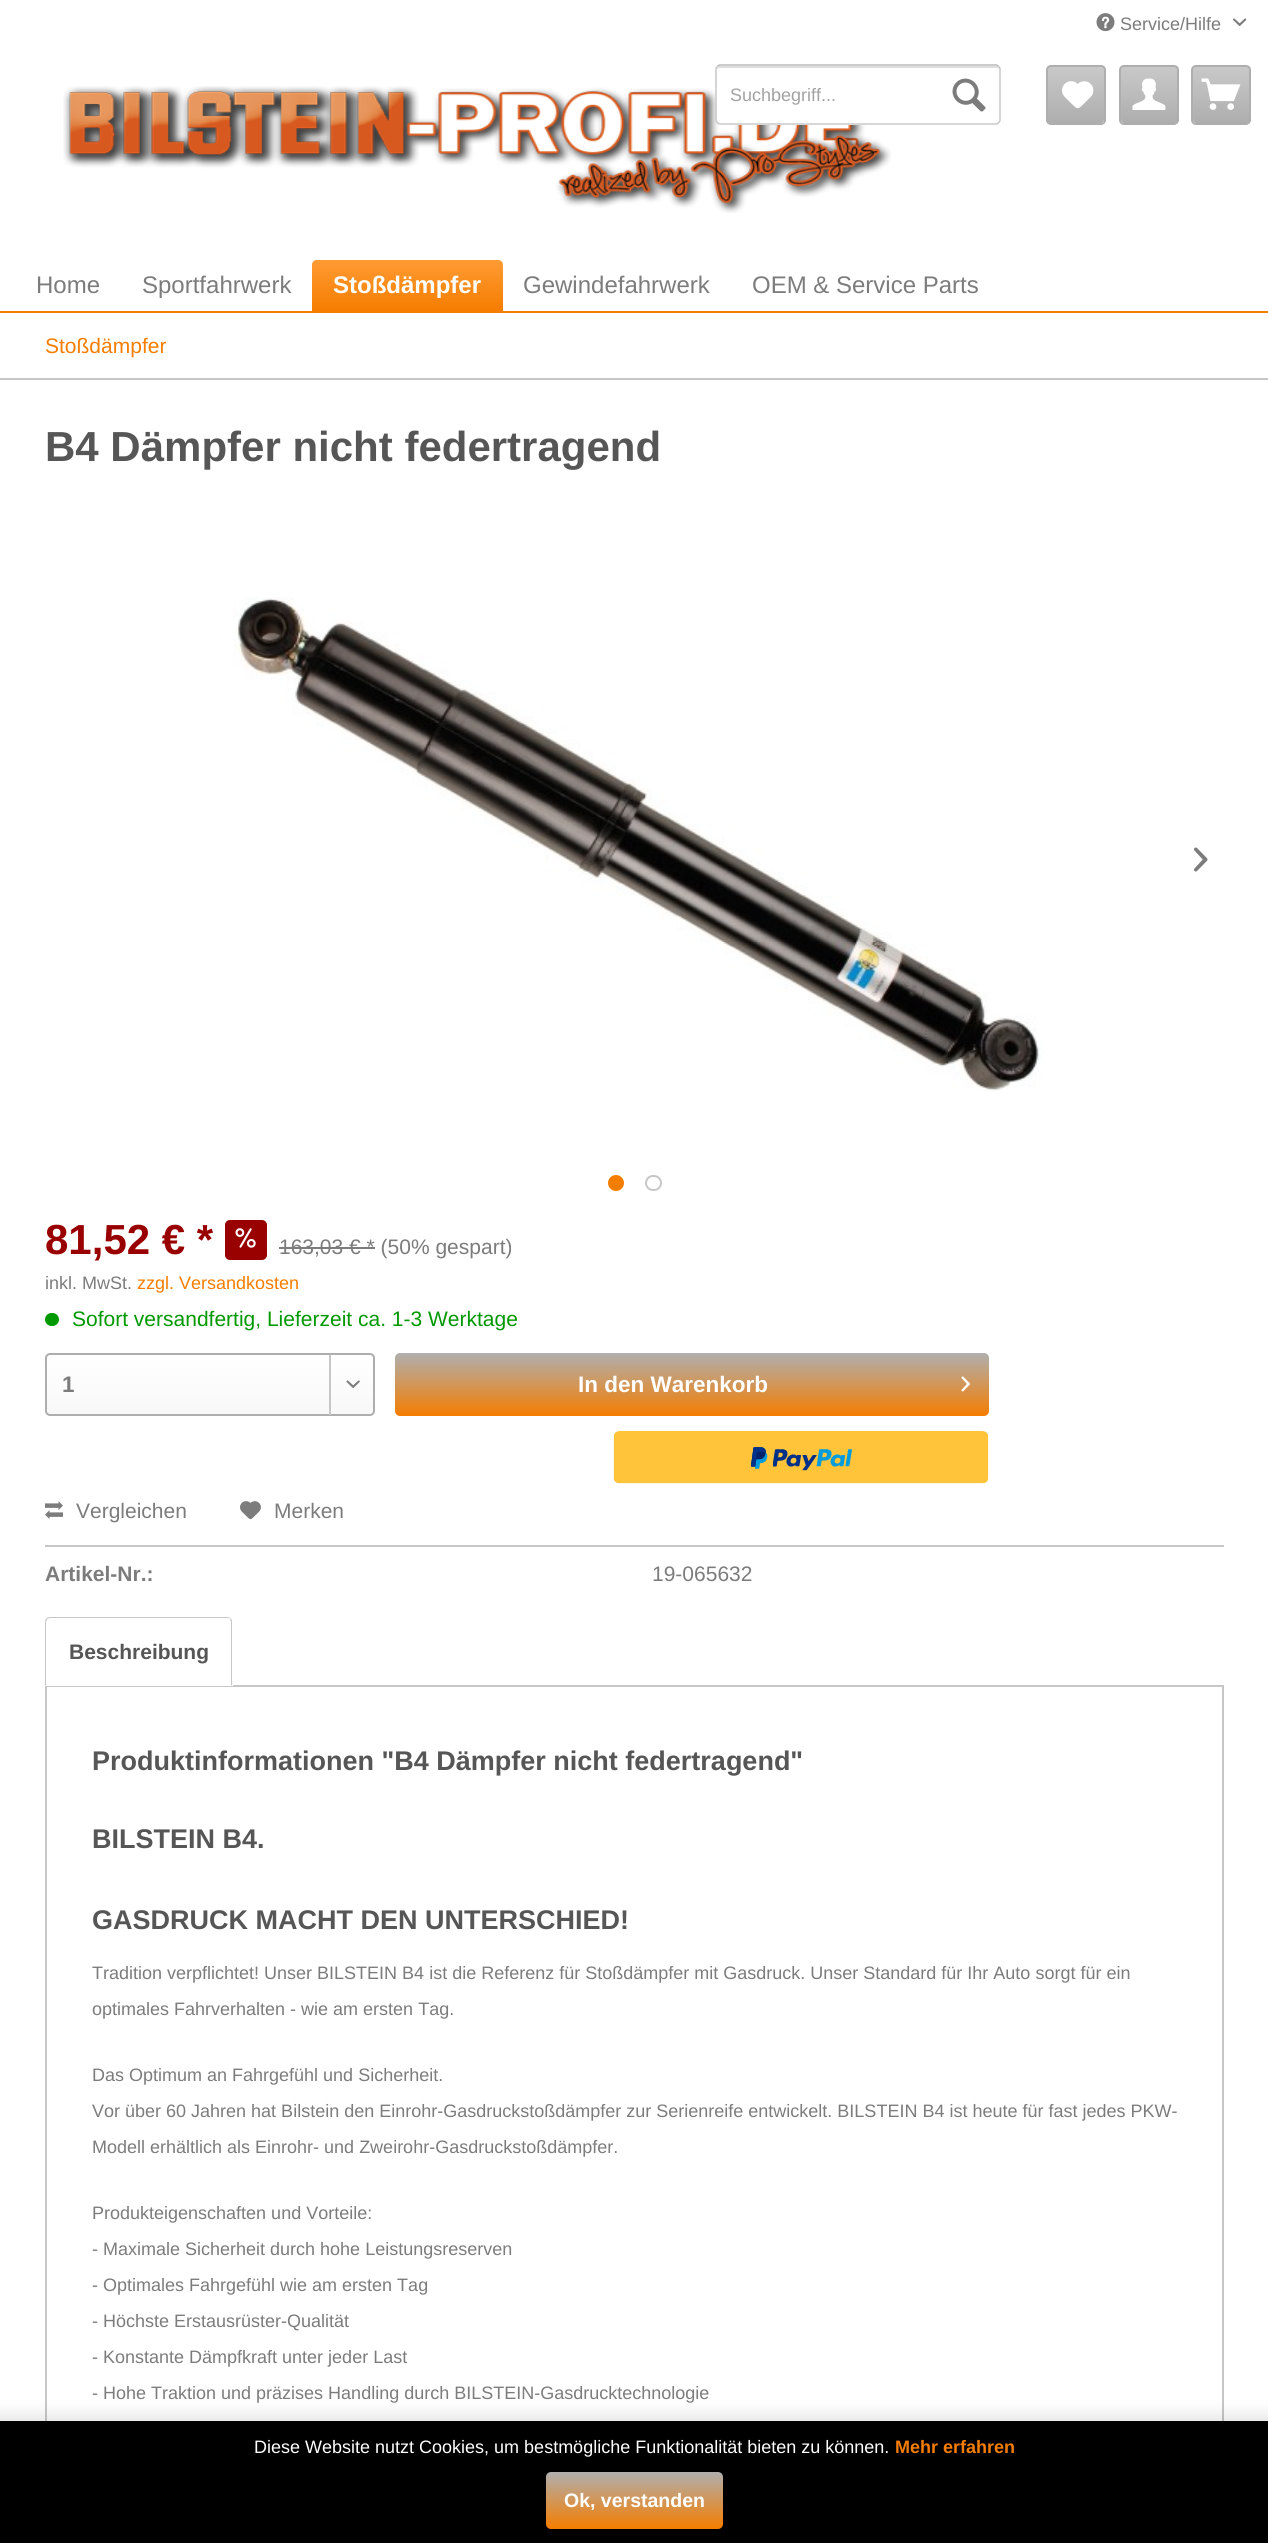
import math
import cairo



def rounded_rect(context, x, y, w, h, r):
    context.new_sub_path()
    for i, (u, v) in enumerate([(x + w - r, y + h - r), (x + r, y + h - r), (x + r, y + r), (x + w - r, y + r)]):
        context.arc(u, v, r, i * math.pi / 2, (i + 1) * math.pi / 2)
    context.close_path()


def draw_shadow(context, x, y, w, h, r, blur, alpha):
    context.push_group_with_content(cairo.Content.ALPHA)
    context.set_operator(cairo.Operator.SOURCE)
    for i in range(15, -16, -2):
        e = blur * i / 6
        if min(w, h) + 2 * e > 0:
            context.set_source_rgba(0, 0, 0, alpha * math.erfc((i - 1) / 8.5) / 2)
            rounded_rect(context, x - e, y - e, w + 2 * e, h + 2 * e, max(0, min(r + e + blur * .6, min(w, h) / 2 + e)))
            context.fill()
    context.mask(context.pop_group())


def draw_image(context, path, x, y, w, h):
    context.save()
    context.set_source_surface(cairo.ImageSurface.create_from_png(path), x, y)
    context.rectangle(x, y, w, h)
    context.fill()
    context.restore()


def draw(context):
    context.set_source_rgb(1, 1, 1)
    context.paint()
    draw_image(context, "images/1.png", 1096, 13, 19, 19)
    draw_image(context, "images/2.png", 1233, 18, 14, 8)
    draw_image(context, "images/3.png", 63, 86, 828, 127)
    context.set_source_rgb(1, 1, 1)
    rounded_rect(context, 716, 65, 285, 60, 5)
    context.fill()
    context.set_source_rgb(222 / 255, 222 / 255, 222 / 255)
    context.new_path()
    context.move_to(720, 68)
    context.line_to(996, 68)
    context.curve_to(998, 68, 999, 69, 999, 70)
    context.line_to(999, 69)
    context.curve_to(999, 67, 998, 66, 996, 66)
    context.line_to(720, 66)
    context.curve_to(718, 66, 717, 67, 717, 69)
    context.line_to(717, 70)
    context.curve_to(717, 69, 718, 68, 720, 68)
    context.close_path()
    context.fill()
    context.new_path()
    context.move_to(717.5, 66.5)
    context.curve_to(718, 65.5, 719, 65, 720, 65)
    context.line_to(996, 65)
    context.curve_to(997, 65, 998, 65.5, 998.5, 66.5)
    context.set_source_rgb(186 / 255, 186 / 255, 186 / 255)
    context.set_line_width(1.5)
    context.stroke()
    context.new_path()
    context.move_to(998.5, 66.5)
    context.curve_to(999.5, 67, 1000, 68, 1000, 69)
    context.line_to(1000, 120)
    context.curve_to(1000, 121, 999.5, 122, 998.5, 122.5)
    context.curve_to(998, 123.5, 997, 124, 996, 124)
    context.line_to(720, 124)
    context.curve_to(719, 124, 718, 123.5, 717.5, 122.5)
    context.curve_to(716.5, 122, 716, 121, 716, 120)
    context.line_to(716, 69)
    context.curve_to(716, 68, 716.5, 67, 717.5, 66.5)
    context.set_source_rgb(199 / 255, 199 / 255, 199 / 255)
    context.stroke()
    draw_image(context, "images/4.png", 952, 78, 34, 34)
    gradient = cairo.LinearGradient(1076, 66, 1076, 123)
    gradient.add_color_stop_rgba(0, 201 / 255, 201 / 255, 201 / 255, 1)
    gradient.add_color_stop_rgba(1, 174 / 255, 174 / 255, 174 / 255, 1)
    context.set_source(gradient)
    rounded_rect(context, 1047, 66, 57, 57, 3)
    context.fill()
    rounded_rect(context, 1047, 66, 58, 58, 4)
    context.set_source_rgb(174 / 255, 174 / 255, 174 / 255)
    context.set_line_width(2)
    context.stroke()
    draw_image(context, "images/5.png", 1062, 81, 32, 28)
    gradient = cairo.LinearGradient(1149, 66, 1149, 123)
    gradient.add_color_stop_rgba(0, 201 / 255, 201 / 255, 201 / 255, 1)
    gradient.add_color_stop_rgba(1, 174 / 255, 174 / 255, 174 / 255, 1)
    context.set_source(gradient)
    rounded_rect(context, 1121, 66, 57, 57, 3)
    context.fill()
    rounded_rect(context, 1120, 66, 58, 58, 4)
    context.set_source_rgb(174 / 255, 174 / 255, 174 / 255)
    context.stroke()
    draw_image(context, "images/6.png", 1132, 78, 34, 32)
    gradient = cairo.LinearGradient(1221, 66, 1221, 123)
    gradient.add_color_stop_rgba(0, 201 / 255, 201 / 255, 201 / 255, 1)
    gradient.add_color_stop_rgba(1, 174 / 255, 174 / 255, 174 / 255, 1)
    context.set_source(gradient)
    rounded_rect(context, 1193, 66, 57, 57, 3)
    context.fill()
    rounded_rect(context, 1192, 66, 58, 58, 4)
    context.set_source_rgb(174 / 255, 174 / 255, 174 / 255)
    context.stroke()
    draw_image(context, "images/7.png", 1201, 78, 40, 32)
    context.set_source_rgb(245 / 255, 125 / 255, 0)
    context.rectangle(0, 311, 1268, 2)
    context.fill()
    gradient = cairo.LinearGradient(407, 260, 407, 311)
    gradient.add_color_stop_rgba(0, 1, 155 / 255, 51 / 255, 1)
    gradient.add_color_stop_rgba(1, 245 / 255, 125 / 255, 0, 1)
    context.set_source(gradient)
    context.new_path()
    context.move_to(317, 260)
    context.line_to(498, 260)
    context.curve_to(501, 260, 503, 262, 503, 265)
    context.line_to(503, 311)
    context.line_to(312, 311)
    context.line_to(312, 265)
    context.curve_to(312, 262, 314, 260, 317, 260)
    context.close_path()
    context.fill()
    context.set_source_rgb(199 / 255, 199 / 255, 199 / 255)
    context.rectangle(0, 378, 1268, 2)
    context.fill()
    draw_image(context, "images/8.png", 233, 597, 812, 494)
    draw_image(context, "images/9.png", 1194, 847, 14, 25)
    context.set_source_rgb(245 / 255, 125 / 255, 0)
    context.arc(616, 1183, 7, 0, 2 * math.pi)
    context.fill_preserve()
    context.stroke()
    rounded_rect(context, 646, 1176, 15, 14, 7)
    context.set_source_rgb(199 / 255, 199 / 255, 199 / 255)
    context.stroke()
    context.set_source_rgb(153 / 255, 0, 0)
    rounded_rect(context, 225, 1220, 42, 40, 5)
    context.fill()
    draw_image(context, "images/10.png", 235, 1228, 21, 20)
    context.set_source_rgb(124 / 255, 124 / 255, 124 / 255)
    context.rectangle(279, 1247, 96, 2)
    context.fill()
    context.set_source_rgb(0, 153 / 255, 0)
    rounded_rect(context, 45, 1313, 14, 13, 6.5)
    context.fill()
    gradient = cairo.LinearGradient(210, 1355, 210, 1415)
    gradient.add_color_stop_rgba(0, 1, 1, 1, 1)
    gradient.add_color_stop_rgba(1, 248 / 255, 248 / 255, 248 / 255, 1)
    context.set_source(gradient)
    rounded_rect(context, 47, 1355, 327, 60, 3)
    context.fill()
    rounded_rect(context, 46, 1354, 328, 61, 4)
    context.set_source_rgb(174 / 255, 174 / 255, 174 / 255)
    context.stroke()
    context.set_source_rgb(199 / 255, 199 / 255, 199 / 255)
    context.rectangle(329, 1355, 2, 60)
    context.fill()
    draw_image(context, "images/11.png", 346, 1380, 14, 8)
    gradient = cairo.LinearGradient(692, 1353, 692, 1416)
    gradient.add_color_stop_rgba(0, 175 / 255, 175 / 255, 175 / 255, 1)
    gradient.add_color_stop_rgba(1, 245 / 255, 125 / 255, 0, 1)
    context.set_source(gradient)
    rounded_rect(context, 395, 1353, 594, 63, 5)
    context.fill()
    draw_image(context, "images/12.png", 961, 1376, 9, 16)
    draw_image(context, "images/13.png", 613, 1431, 376, 53)
    context.set_source_rgb(199 / 255, 199 / 255, 199 / 255)
    context.rectangle(45, 1545, 1179, 2)
    context.fill()
    draw_image(context, "images/14.png", 45, 1501, 18, 18)
    draw_image(context, "images/15.png", 240, 1501, 21, 19)
    context.rectangle(46, 1686, 1177, 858)
    context.stroke()
    context.set_source_rgb(1, 1, 1)
    context.new_path()
    context.move_to(50, 1617)
    context.line_to(228, 1617)
    context.curve_to(231, 1617, 233, 1619, 233, 1622)
    context.line_to(233, 1686)
    context.line_to(45, 1686)
    context.line_to(45, 1622)
    context.curve_to(45, 1619, 47, 1617, 50, 1617)
    context.close_path()
    context.fill()
    context.set_source_rgb(199 / 255, 199 / 255, 199 / 255)
    context.new_path()
    context.move_to(50, 1617)
    context.curve_to(48, 1617, 47, 1618, 46, 1618)
    context.line_to(47, 1619)
    context.line_to(50, 1618)
    context.line_to(229, 1618)
    context.line_to(230, 1619)
    context.line_to(231, 1619)
    context.curve_to(230, 1618, 229, 1617, 228, 1617)
    context.close_path()
    context.fill()
    context.new_path()
    context.move_to(231, 1619)
    context.curve_to(232, 1619, 232, 1621, 232, 1622)
    context.line_to(232, 1686)
    context.line_to(230, 1684)
    context.line_to(231, 1684)
    context.line_to(231, 1622)
    context.line_to(230, 1619)
    context.close_path()
    context.fill()
    context.set_source_rgb(1, 1, 1)
    context.new_path()
    context.move_to(232, 1686)
    context.line_to(230, 1684)
    context.line_to(47, 1684)
    context.line_to(45, 1686)
    context.close_path()
    context.fill()
    context.set_source_rgb(199 / 255, 199 / 255, 199 / 255)
    context.new_path()
    context.move_to(45, 1686)
    context.line_to(47, 1684)
    context.line_to(46, 1684)
    context.line_to(46, 1622)
    context.line_to(47, 1619)
    context.line_to(46, 1618)
    context.curve_to(46, 1619, 45, 1620, 45, 1622)
    context.close_path()
    context.fill()
    context.set_source_rgb(0, 0, 0)
    draw_shadow(context, -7, 2414, 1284, 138, 0, 7.5, 0.1)
    context.set_source_rgb(0, 0, 0)
    context.rectangle(0, 2421, 1268, 122)
    context.fill()
    gradient = cairo.LinearGradient(635, 2472, 635, 2529)
    gradient.add_color_stop_rgba(0, 175 / 255, 175 / 255, 175 / 255, 1)
    gradient.add_color_stop_rgba(1, 245 / 255, 125 / 255, 0, 1)
    context.set_source(gradient)
    rounded_rect(context, 546, 2472, 177, 57, 5)
    context.fill()
    context.select_font_face("Liberation Sans")
    context.set_font_size(18)
    context.set_source_rgb(124 / 255, 124 / 255, 124 / 255)
    context.move_to(1120, 30)
    context.show_text("Service/Hilfe")
    context.set_source_rgb(162 / 255, 162 / 255, 162 / 255)
    context.move_to(730, 101)
    context.show_text("Suchbegriff...")
    context.set_font_size(24)
    context.set_source_rgb(124 / 255, 124 / 255, 124 / 255)
    context.move_to(36, 293)
    context.show_text("Home")
    context.move_to(142, 293)
    context.show_text("Sportfahrwerk")
    context.select_font_face("Liberation Sans", cairo.FontSlant.NORMAL, cairo.FontWeight.BOLD)
    context.set_source_rgb(1, 1, 1)
    context.move_to(333, 293)
    context.show_text("Stoßdämpfer")
    context.select_font_face("Liberation Sans")
    context.set_source_rgb(124 / 255, 124 / 255, 124 / 255)
    context.move_to(523, 293)
    context.show_text("Gewindefahrwerk")
    context.move_to(752, 293)
    context.show_text("OEM & Service Parts")
    context.set_font_size(21)
    context.set_source_rgb(245 / 255, 125 / 255, 0)
    context.move_to(45, 353)
    context.show_text("Stoßdämpfer")
    context.select_font_face("Liberation Sans", cairo.FontSlant.NORMAL, cairo.FontWeight.BOLD)
    context.set_font_size(42)
    context.set_source_rgb(86 / 255, 86 / 255, 86 / 255)
    context.move_to(45, 461)
    context.show_text("B4 Dämpfer nicht federtragend")
    context.set_source_rgb(153 / 255, 0, 0)
    context.move_to(45, 1254)
    context.show_text("81,52 € *")
    context.select_font_face("Liberation Sans")
    context.set_font_size(21)
    context.set_source_rgb(124 / 255, 124 / 255, 124 / 255)
    context.move_to(279, 1254)
    context.show_text("163,03 € * (50% gespart)")
    context.set_font_size(18)
    context.move_to(45, 1289)
    context.show_text("inkl. MwSt.")
    context.set_source_rgb(245 / 255, 125 / 255, 0)
    context.move_to(137, 1289)
    context.show_text("zzgl. Versandkosten")
    context.set_font_size(21)
    context.set_source_rgb(0, 153 / 255, 0)
    context.move_to(72, 1326)
    context.show_text("Sofort versandfertig, Lieferzeit ca. 1-3 Werktage")
    context.select_font_face("Liberation Sans", cairo.FontSlant.NORMAL, cairo.FontWeight.BOLD)
    context.set_font_size(22.5)
    context.set_source_rgb(124 / 255, 124 / 255, 124 / 255)
    context.move_to(62, 1392)
    context.show_text("1")
    context.set_source_rgb(1, 1, 1)
    context.move_to(578, 1392)
    context.show_text("In den Warenkorb")
    context.select_font_face("Liberation Sans")
    context.set_font_size(21)
    context.set_source_rgb(124 / 255, 124 / 255, 124 / 255)
    context.move_to(76, 1518)
    context.show_text("Vergleichen")
    context.move_to(274, 1518)
    context.show_text("Merken")
    context.select_font_face("Liberation Sans", cairo.FontSlant.NORMAL, cairo.FontWeight.BOLD)
    context.move_to(45, 1581)
    context.show_text("Artikel-Nr.:")
    context.select_font_face("Liberation Sans")
    context.move_to(652, 1581)
    context.show_text("19-065632")
    context.select_font_face("Liberation Sans", cairo.FontSlant.NORMAL, cairo.FontWeight.BOLD)
    context.set_source_rgb(86 / 255, 86 / 255, 86 / 255)
    context.move_to(69, 1659)
    context.show_text("Beschreibung")
    context.set_font_size(27)
    context.move_to(92, 1770)
    context.show_text("Produktinformationen \"B4 Dämpfer nicht federtragend\"")
    context.move_to(92, 1848)
    context.show_text("BILSTEIN B4.")
    context.move_to(92, 1929)
    context.show_text("GASDRUCK MACHT DEN UNTERSCHIED!")
    context.select_font_face("Liberation Sans")
    context.set_font_size(18)
    context.set_source_rgb(124 / 255, 124 / 255, 124 / 255)
    context.move_to(92, 1979)
    context.show_text("Tradition verpflichtet! Unser BILSTEIN B4 ist die Referenz für Stoßdämpfer mit Gasdruck. Unser Standard für Ihr Auto sorgt für ein")
    context.move_to(92, 2015)
    context.show_text("optimales Fahrverhalten - wie am ersten Tag.")
    context.move_to(92, 2081)
    context.show_text("Das Optimum an Fahrgefühl und Sicherheit.")
    context.move_to(92, 2117)
    context.show_text("Vor über 60 Jahren hat Bilstein den Einrohr-Gasdruckstoßdämpfer zur Serienreife entwickelt. BILSTEIN B4 ist heute für fast jedes PKW-")
    context.move_to(92, 2153)
    context.show_text("Modell erhältlich als Einrohr- und Zweirohr-Gasdruckstoßdämpfer.")
    context.move_to(92, 2219)
    context.show_text("Produkteigenschaften und Vorteile:")
    context.move_to(92, 2255)
    context.show_text("- Maximale Sicherheit durch hohe Leistungsreserven")
    context.move_to(92, 2291)
    context.show_text("- Optimales Fahrgefühl wie am ersten Tag")
    context.move_to(92, 2327)
    context.show_text("- Höchste Erstausrüster-Qualität")
    context.move_to(92, 2363)
    context.show_text("- Konstante Dämpfkraft unter jeder Last")
    context.move_to(92, 2399)
    context.show_text("- Hohe Traktion und präzises Handling durch BILSTEIN-Gasdrucktechnologie")
    context.set_source_rgb(1, 1, 1)
    context.move_to(254, 2453)
    context.show_text("Diese Website nutzt Cookies, um bestmögliche Funktionalität bieten zu können.")
    context.select_font_face("Liberation Sans", cairo.FontSlant.NORMAL, cairo.FontWeight.BOLD)
    context.set_source_rgb(245 / 255, 125 / 255, 0)
    context.move_to(895, 2453)
    context.show_text("Mehr erfahren")
    context.set_font_size(19.5)
    context.set_source_rgb(1, 1, 1)
    context.move_to(564, 2507)
    context.show_text("Ok, verstanden")


surface = cairo.ImageSurface(cairo.Format.RGB24, 1268, 2543)
context = cairo.Context(surface)
options = cairo.FontOptions()
options.set_hint_metrics(cairo.HintMetrics.OFF)
options.set_hint_style(cairo.HintStyle.NONE)
context.set_font_options(options)
context.set_miter_limit(4)
draw(context)
surface.write_to_png("out.png")
